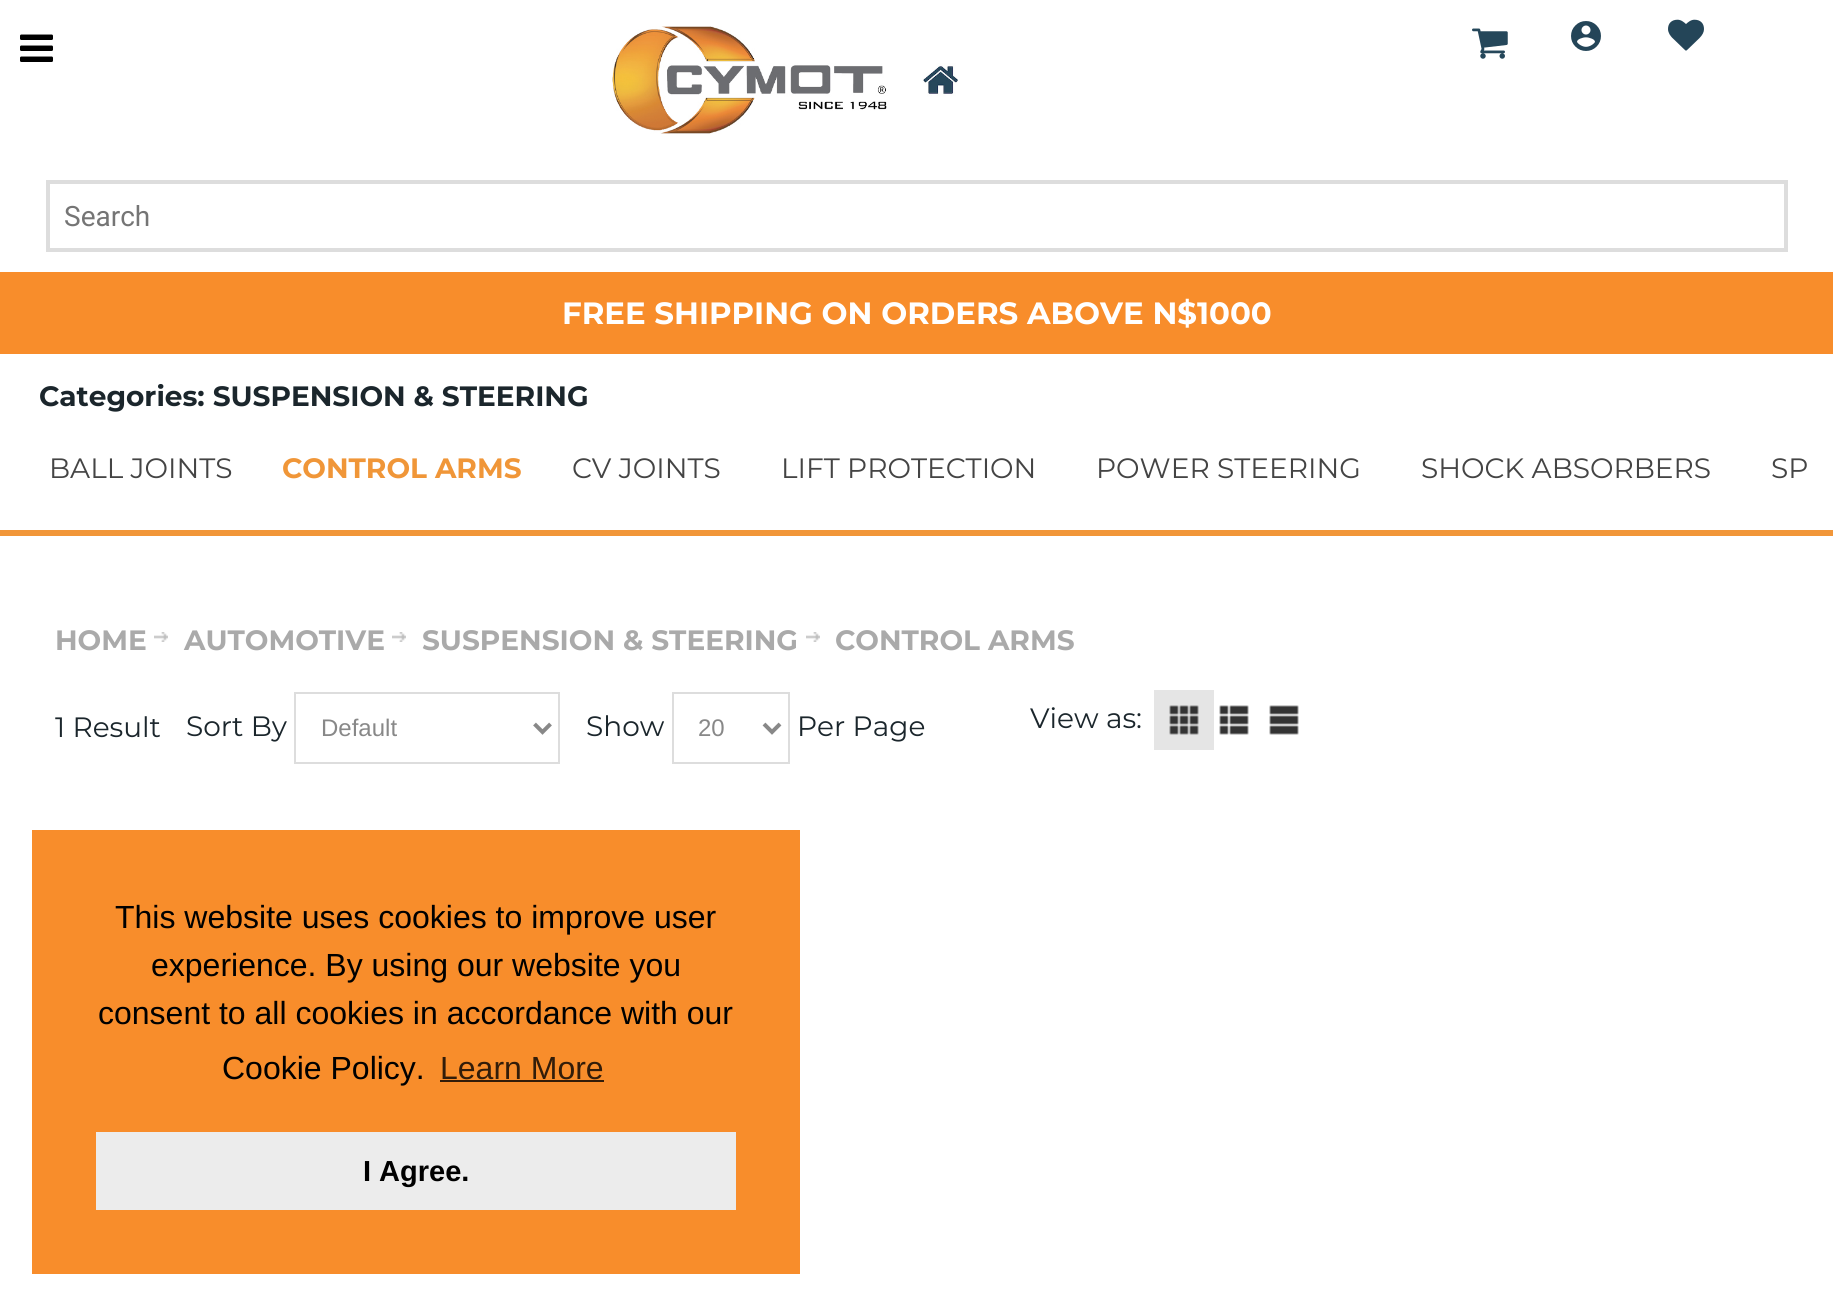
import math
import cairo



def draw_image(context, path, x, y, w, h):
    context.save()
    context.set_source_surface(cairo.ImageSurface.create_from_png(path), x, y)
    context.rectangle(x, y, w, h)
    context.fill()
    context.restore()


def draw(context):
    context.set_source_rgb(1, 1, 1)
    context.paint()
    draw_image(context, "images/1.png", 20, 34, 33, 28)
    draw_image(context, "images/2.png", 612, 26, 346, 108)
    draw_image(context, "images/3.png", 1472, 28, 36, 31)
    draw_image(context, "images/4.png", 1571, 21, 30, 30)
    draw_image(context, "images/5.png", 1668, 19, 36, 32)
    context.rectangle(48, 182, 1738, 68)
    context.set_source_rgb(221 / 255, 221 / 255, 221 / 255)
    context.set_line_width(4)
    context.stroke()
    context.set_source_rgb(248 / 255, 141 / 255, 43 / 255)
    context.rectangle(0, 272, 1833, 82)
    context.fill()
    context.set_source_rgb(241 / 255, 150 / 255, 57 / 255)
    context.rectangle(0, 530, 1833, 6)
    context.fill()
    draw_image(context, "images/6.png", 154, 632, 14, 10)
    draw_image(context, "images/6.png", 392, 632, 14, 10)
    draw_image(context, "images/6.png", 806, 632, 14, 10)
    context.rectangle(295, 693, 264, 70)
    context.set_source_rgb(221 / 255, 221 / 255, 221 / 255)
    context.set_line_width(2)
    context.stroke()
    context.new_path()
    context.move_to(534.5, 724)
    context.line_to(542.5, 732)
    context.line_to(550.5, 724)
    context.set_source_rgb(136 / 255, 136 / 255, 136 / 255)
    context.set_line_width(4)
    context.stroke()
    context.rectangle(673, 693, 116, 70)
    context.set_source_rgb(221 / 255, 221 / 255, 221 / 255)
    context.set_line_width(2)
    context.stroke()
    context.new_path()
    context.move_to(764, 724)
    context.line_to(772, 732)
    context.line_to(780, 724)
    context.set_source_rgb(136 / 255, 136 / 255, 136 / 255)
    context.set_line_width(4)
    context.stroke()
    context.set_source_rgb(229 / 255, 229 / 255, 229 / 255)
    context.rectangle(1154, 690, 60, 60)
    context.fill()
    draw_image(context, "images/7.png", 1169, 705, 30, 30)
    draw_image(context, "images/8.png", 1219, 705, 30, 30)
    draw_image(context, "images/9.png", 1269, 705, 30, 30)
    context.set_source_rgb(248 / 255, 141 / 255, 43 / 255)
    context.rectangle(32, 830, 768, 444)
    context.fill()
    context.set_source_rgb(50 / 255, 28 / 255, 9 / 255)
    context.rectangle(440, 1080, 164, 2)
    context.fill()
    context.set_source_rgb(236 / 255, 236 / 255, 236 / 255)
    context.rectangle(96, 1132, 640, 78)
    context.fill()
    context.select_font_face("Roboto")
    context.set_font_size(28)
    context.set_source_rgb(117 / 255, 117 / 255, 117 / 255)
    context.move_to(64, 226)
    context.show_text("Search")
    context.select_font_face("Montserrat", cairo.FontSlant.NORMAL, cairo.FontWeight.BOLD)
    context.set_font_size(30.8)
    context.set_source_rgb(1, 1, 1)
    context.move_to(562, 324)
    context.show_text("FREE SHIPPING ON ORDERS ABOVE N$1000")
    context.set_font_size(28)
    context.set_source_rgb(27 / 255, 38 / 255, 44 / 255)
    context.move_to(39, 406)
    context.show_text("Categories: SUSPENSION & STEERING")
    context.select_font_face("Montserrat")
    context.set_source_rgb(68 / 255, 68 / 255, 68 / 255)
    context.move_to(49, 478)
    context.show_text("BALL JOINTS")
    context.select_font_face("Montserrat", cairo.FontSlant.NORMAL, cairo.FontWeight.BOLD)
    context.set_source_rgb(240 / 255, 150 / 255, 56 / 255)
    context.move_to(282, 478)
    context.show_text("CONTROL ARMS")
    context.select_font_face("Montserrat")
    context.set_source_rgb(68 / 255, 68 / 255, 68 / 255)
    context.move_to(572, 478)
    context.show_text("CV JOINTS")
    context.move_to(781, 478)
    context.show_text("LIFT PROTECTION")
    context.move_to(1096, 478)
    context.show_text("POWER STEERING")
    context.move_to(1421, 478)
    context.show_text("SHOCK ABSORBERS")
    context.move_to(1771, 478)
    context.show_text("SP")
    context.select_font_face("Montserrat", cairo.FontSlant.NORMAL, cairo.FontWeight.BOLD)
    context.set_source_rgb(170 / 255, 170 / 255, 170 / 255)
    context.move_to(55, 650)
    context.show_text("HOME")
    context.move_to(184, 650)
    context.show_text("AUTOMOTIVE")
    context.move_to(422, 650)
    context.show_text("SUSPENSION & STEERING")
    context.move_to(835, 650)
    context.show_text("CONTROL ARMS")
    context.select_font_face("Montserrat")
    context.set_source_rgb(27 / 255, 38 / 255, 44 / 255)
    context.move_to(55, 737)
    context.show_text("1 Result")
    context.move_to(186, 736)
    context.show_text("Sort By")
    context.select_font_face("Liberation Sans")
    context.set_font_size(24)
    context.set_source_rgb(136 / 255, 136 / 255, 136 / 255)
    context.move_to(321, 736)
    context.show_text("Default")
    context.select_font_face("Montserrat")
    context.set_font_size(28)
    context.set_source_rgb(27 / 255, 38 / 255, 44 / 255)
    context.move_to(586, 736)
    context.show_text("Show")
    context.select_font_face("Liberation Sans")
    context.set_font_size(24)
    context.set_source_rgb(136 / 255, 136 / 255, 136 / 255)
    context.move_to(698, 736)
    context.show_text("20")
    context.select_font_face("Montserrat")
    context.set_font_size(28)
    context.set_source_rgb(27 / 255, 38 / 255, 44 / 255)
    context.move_to(797, 736)
    context.show_text("Per Page")
    context.move_to(1030, 728)
    context.show_text("View as:")
    context.select_font_face("Liberation Sans")
    context.set_font_size(32)
    context.set_source_rgb(0, 0, 0)
    context.move_to(115, 928)
    context.show_text("This website uses cookies to improve user")
    context.move_to(151, 976)
    context.show_text("experience. By using our website you")
    context.move_to(98, 1024)
    context.show_text("consent to all cookies in accordance with our")
    context.move_to(222, 1079)
    context.show_text("Cookie Policy.")
    context.set_source_rgb(50 / 255, 28 / 255, 9 / 255)
    context.move_to(440, 1079)
    context.show_text("Learn More")
    context.select_font_face("Liberation Sans", cairo.FontSlant.NORMAL, cairo.FontWeight.BOLD)
    context.set_font_size(29)
    context.set_source_rgb(0, 0, 0)
    context.move_to(363, 1181)
    context.show_text("I Agree.")


surface = cairo.ImageSurface(cairo.Format.RGB24, 1833, 1305)
context = cairo.Context(surface)
options = cairo.FontOptions()
options.set_hint_metrics(cairo.HintMetrics.OFF)
options.set_hint_style(cairo.HintStyle.NONE)
context.set_font_options(options)
context.set_miter_limit(4)
draw(context)
surface.write_to_png("out.png")
